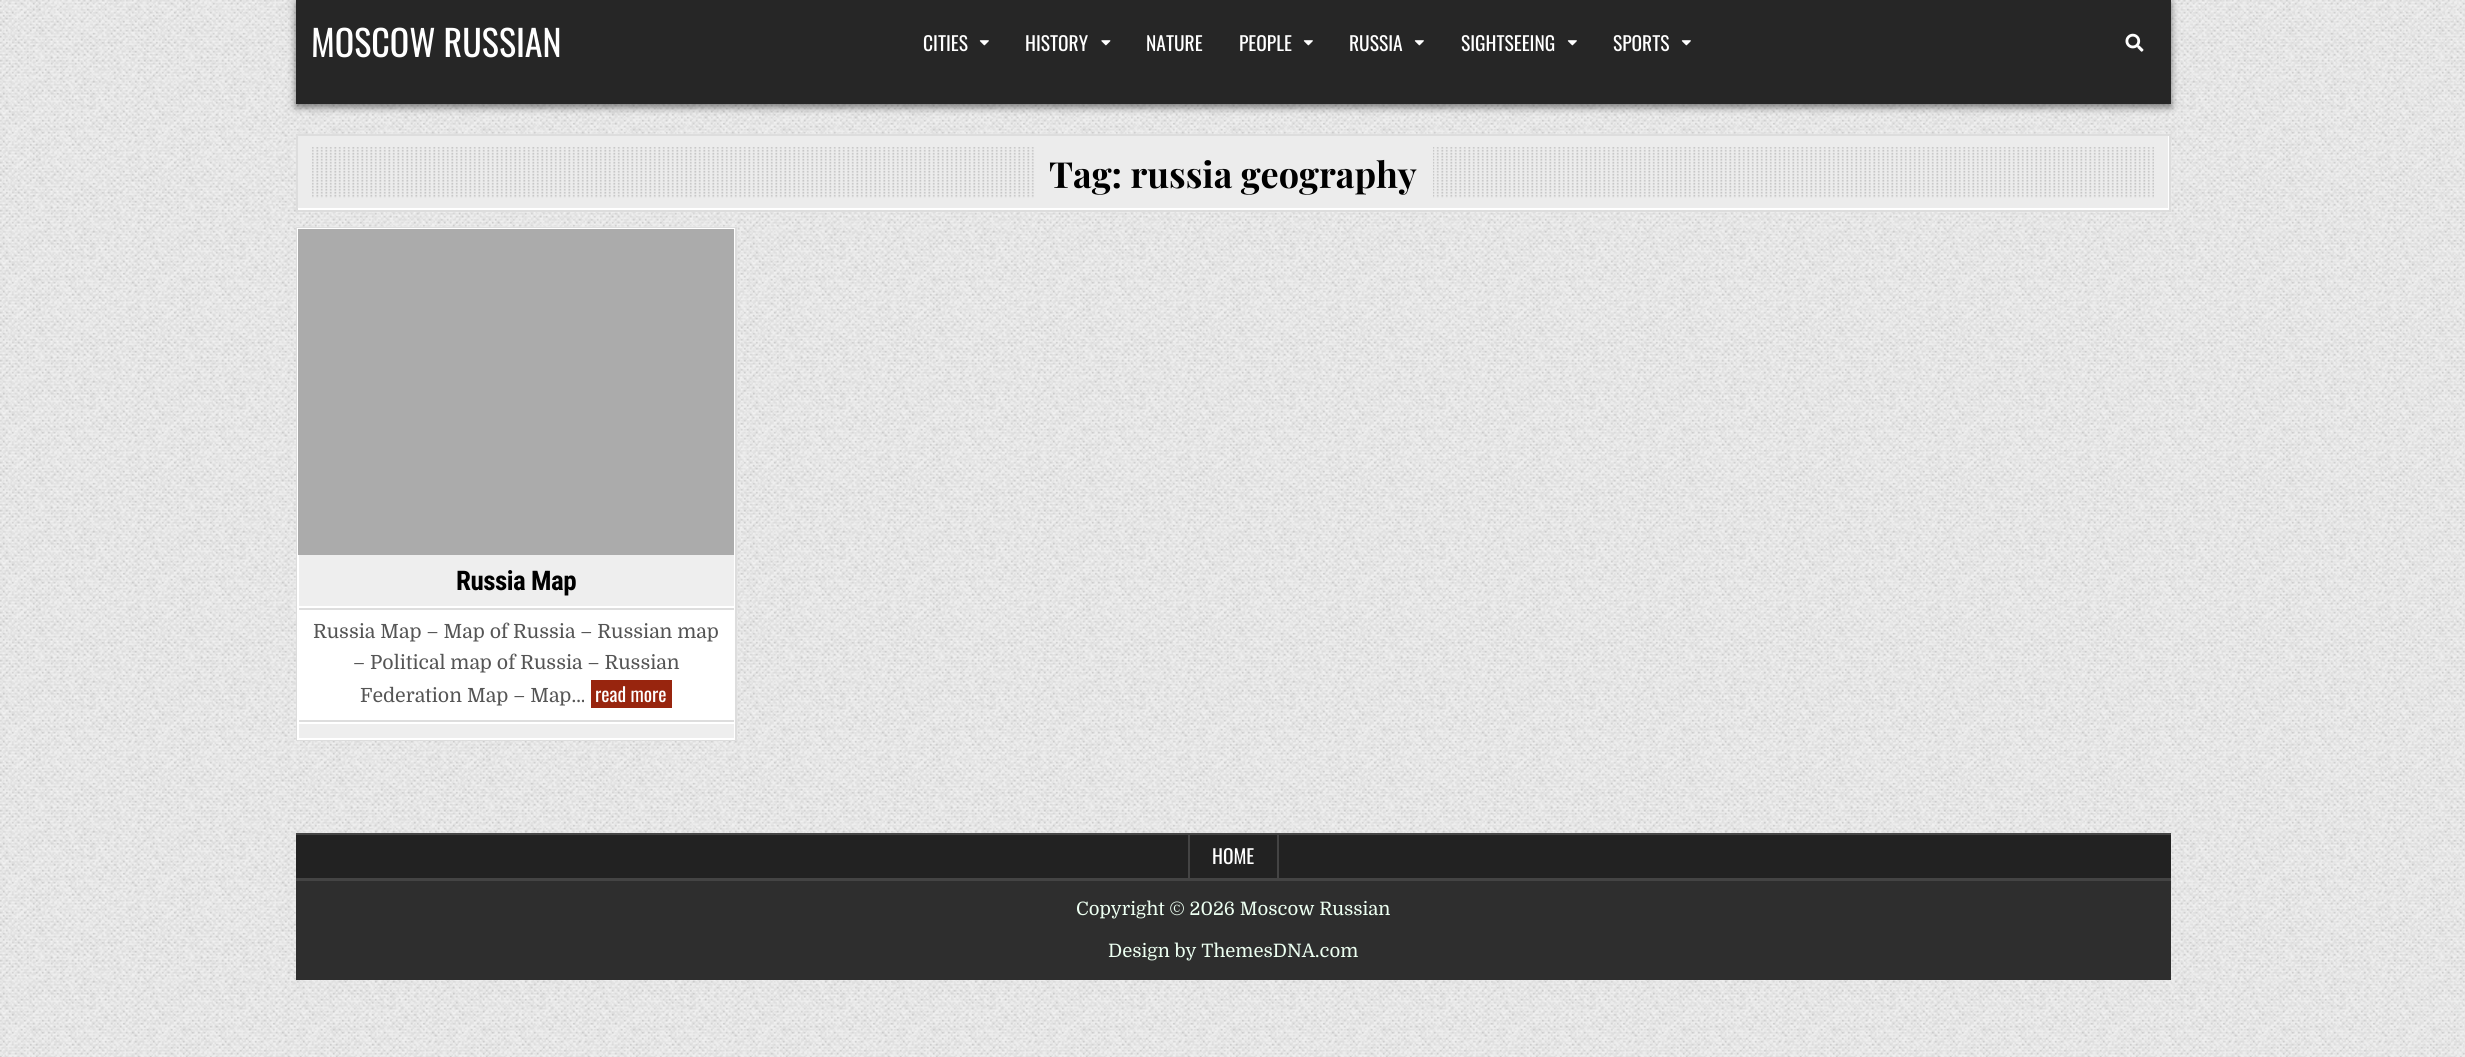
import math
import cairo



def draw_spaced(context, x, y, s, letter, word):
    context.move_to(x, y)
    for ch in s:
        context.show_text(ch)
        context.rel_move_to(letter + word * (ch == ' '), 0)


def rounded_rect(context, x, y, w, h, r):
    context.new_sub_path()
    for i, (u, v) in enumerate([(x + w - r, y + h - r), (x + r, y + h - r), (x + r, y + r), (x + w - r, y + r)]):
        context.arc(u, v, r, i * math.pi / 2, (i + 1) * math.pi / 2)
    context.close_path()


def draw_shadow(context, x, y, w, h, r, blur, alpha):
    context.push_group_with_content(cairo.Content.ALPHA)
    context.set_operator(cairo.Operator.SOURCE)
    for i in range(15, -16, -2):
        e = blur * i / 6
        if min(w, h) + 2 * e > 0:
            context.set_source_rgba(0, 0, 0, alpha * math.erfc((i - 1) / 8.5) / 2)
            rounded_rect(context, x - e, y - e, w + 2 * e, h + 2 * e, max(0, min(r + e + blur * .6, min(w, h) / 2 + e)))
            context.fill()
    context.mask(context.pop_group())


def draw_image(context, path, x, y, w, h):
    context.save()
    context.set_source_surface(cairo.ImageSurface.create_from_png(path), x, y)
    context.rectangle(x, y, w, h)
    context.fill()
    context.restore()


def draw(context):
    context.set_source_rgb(1, 1, 1)
    context.paint()
    draw_image(context, "images/1.png", 0, 0, 2465, 1057)
    context.set_source_rgb(0, 0, 0)
    draw_shadow(context, 296, 3, 1875, 104, 0, 4, 0.5)
    context.set_source_rgb(38 / 255, 38 / 255, 38 / 255)
    context.rectangle(296, 0, 1875, 104)
    context.fill()
    draw_image(context, "images/2.png", 979, 40, 10, 6)
    draw_image(context, "images/3.png", 1101, 40, 10, 6)
    draw_image(context, "images/2.png", 1303, 40, 10, 6)
    draw_image(context, "images/2.png", 1414, 40, 10, 6)
    draw_image(context, "images/2.png", 1567, 40, 10, 6)
    draw_image(context, "images/2.png", 1681, 40, 10, 6)
    draw_image(context, "images/4.png", 2125, 33, 19, 19)
    context.set_source_rgb(236 / 255, 236 / 255, 236 / 255)
    context.rectangle(298, 136, 1870, 72)
    context.fill()
    context.save()
    context.rectangle(297, 135, 1872, 75)
    context.clip()
    context.set_source_rgb(1, 1, 1)
    context.set_fill_rule(cairo.FillRule.EVEN_ODD)
    context.new_path()
    context.move_to(148, -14)
    context.line_to(2318, -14)
    context.line_to(2318, 358)
    context.line_to(148, 358)
    context.close_path()
    context.move_to(296, 134)
    context.line_to(2168, 134)
    context.line_to(2168, 208)
    context.line_to(296, 208)
    context.close_path()
    context.fill()
    context.restore()
    context.rectangle(297, 135, 1873, 76)
    context.set_source_rgb(221 / 255, 221 / 255, 221 / 255)
    context.stroke()
    draw_image(context, "images/5.png", 312, 147, 1842, 51)
    context.set_source_rgb(236 / 255, 236 / 255, 236 / 255)
    context.rectangle(1036, 147, 397, 51)
    context.fill()
    context.set_source_rgb(1, 1, 1)
    context.rectangle(299, 606, 434, 114)
    context.fill()
    context.rectangle(297, 228, 439, 512)
    context.set_source_rgb(221 / 255, 221 / 255, 221 / 255)
    context.stroke()
    context.rectangle(298, 229, 436, 510)
    context.set_source_rgb(1, 1, 1)
    context.stroke()
    context.set_source_rgb(171 / 255, 171 / 255, 171 / 255)
    context.rectangle(298, 229, 436, 326)
    context.fill()
    context.set_source_rgb(238 / 255, 238 / 255, 238 / 255)
    context.rectangle(299, 555, 435, 51)
    context.fill()
    context.set_source_rgb(221 / 255, 221 / 255, 221 / 255)
    context.rectangle(299, 608, 435, 2)
    context.fill()
    context.set_source_rgb(152 / 255, 37 / 255, 14 / 255)
    context.rectangle(591, 680, 81, 28)
    context.fill()
    context.set_source_rgb(238 / 255, 238 / 255, 238 / 255)
    context.rectangle(299, 724, 435, 14)
    context.fill()
    context.set_source_rgb(221 / 255, 221 / 255, 221 / 255)
    context.rectangle(299, 720, 435, 2)
    context.fill()
    context.set_source_rgb(1, 1, 1)
    context.rectangle(299, 722, 435, 2)
    context.fill()
    context.set_source_rgb(34 / 255, 34 / 255, 34 / 255)
    context.rectangle(296, 835, 1875, 43)
    context.fill()
    context.set_source_rgb(68 / 255, 68 / 255, 68 / 255)
    context.rectangle(296, 833, 1875, 2)
    context.fill()
    context.rectangle(296, 878, 1875, 3)
    context.fill()
    context.rectangle(1277, 834, 2, 44)
    context.fill()
    context.rectangle(1188, 834, 2, 44)
    context.fill()
    context.set_source_rgb(46 / 255, 46 / 255, 46 / 255)
    context.rectangle(296, 881, 1875, 99)
    context.fill()
    context.select_font_face("Oswald")
    context.set_font_size(36)
    context.set_source_rgb(1, 1, 1)
    context.move_to(311, 57)
    context.show_text("MOSCOW RUSSIAN")
    context.set_font_size(19.5)
    context.move_to(923, 51)
    context.show_text("CITIES")
    context.move_to(1025, 51)
    context.show_text("HISTORY")
    context.move_to(1146, 51)
    context.show_text("NATURE")
    context.move_to(1239, 51)
    context.show_text("PEOPLE")
    context.move_to(1349, 51)
    context.show_text("RUSSIA")
    context.move_to(1461, 51)
    context.show_text("SIGHTSEEING")
    context.move_to(1613, 51)
    context.show_text("SPORTS")
    context.select_font_face("Playfair Display", cairo.FontSlant.NORMAL, cairo.FontWeight.BOLD)
    context.set_font_size(36)
    context.set_source_rgb(0, 0, 0)
    context.move_to(1049, 188)
    context.show_text("Tag: russia geography")
    context.select_font_face("Roboto Condensed", cairo.FontSlant.NORMAL, cairo.FontWeight.BOLD)
    context.set_font_size(27)
    draw_spaced(context, 456, 590, "Russia Map", -0.5, 0)
    context.select_font_face("Domine")
    context.set_font_size(19.5)
    context.set_source_rgb(85 / 255, 85 / 255, 85 / 255)
    context.move_to(313, 638)
    context.show_text("Russia Map – Map of Russia – Russian map")
    context.move_to(353, 669)
    context.show_text("– Political map of Russia – Russian")
    context.move_to(360, 702)
    context.show_text("Federation Map – Map…")
    context.select_font_face("Oswald")
    context.set_source_rgb(1, 1, 1)
    context.move_to(595, 702)
    context.show_text("read more")
    context.move_to(1212, 864)
    context.show_text("HOME")
    context.select_font_face("Domine")
    context.set_font_size(18.5)
    context.set_source_rgb(236 / 255, 1, 241 / 255)
    context.move_to(1076, 915)
    context.show_text("Copyright © 2026 Moscow Russian")
    context.move_to(1108, 957)
    context.show_text("Design by ThemesDNA.com")


surface = cairo.ImageSurface(cairo.Format.RGB24, 2465, 1057)
context = cairo.Context(surface)
options = cairo.FontOptions()
options.set_hint_metrics(cairo.HintMetrics.OFF)
options.set_hint_style(cairo.HintStyle.NONE)
context.set_font_options(options)
context.set_miter_limit(4)
draw(context)
surface.write_to_png("out.png")
